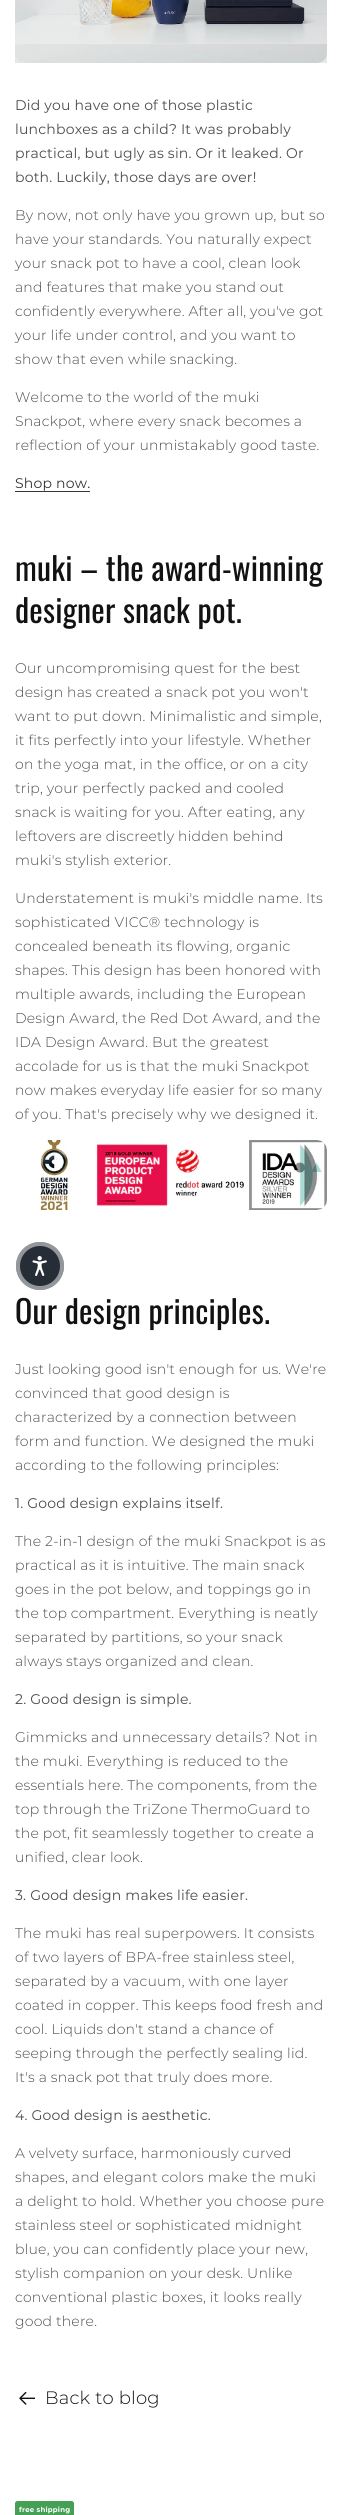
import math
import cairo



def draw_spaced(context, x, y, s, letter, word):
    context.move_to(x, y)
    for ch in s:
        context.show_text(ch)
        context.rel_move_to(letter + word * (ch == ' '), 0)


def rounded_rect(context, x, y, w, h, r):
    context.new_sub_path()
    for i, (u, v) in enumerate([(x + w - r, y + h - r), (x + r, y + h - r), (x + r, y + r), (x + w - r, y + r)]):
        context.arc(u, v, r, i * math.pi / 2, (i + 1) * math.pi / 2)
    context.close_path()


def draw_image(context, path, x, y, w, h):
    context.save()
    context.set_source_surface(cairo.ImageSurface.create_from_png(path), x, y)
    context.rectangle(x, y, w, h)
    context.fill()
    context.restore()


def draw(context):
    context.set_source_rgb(1, 1, 1)
    context.paint()
    context.set_source_rgb(231 / 255, 231 / 255, 231 / 255)
    context.rectangle(15, 53, 312, 10)
    context.fill()
    draw_image(context, "images/1.png", 15, 0, 312, 63)
    context.set_source_rgb(54 / 255, 54 / 255, 54 / 255)
    context.rectangle(15, 491, 75, 1)
    context.fill()
    draw_image(context, "images/2.png", 39, 1140, 288, 70)
    draw_image(context, "images/3.png", 19, 2391, 16, 14)
    context.set_source_rgb(69 / 255, 159 / 255, 84 / 255)
    rounded_rect(context, 15, 2501, 59, 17, 2.5)
    context.fill()
    context.set_source_rgb(39 / 255, 45 / 255, 54 / 255)
    context.arc(40, 1266, 24, 0, 2 * math.pi)
    context.fill()
    context.arc(40, 1266, 22, 0, 2 * math.pi)
    context.set_source_rgba(1, 1, 1, 0.5)
    context.set_line_width(4)
    context.stroke()
    draw_image(context, "images/4.png", 32, 1256, 15, 20)
    context.select_font_face("Montserrat Thin")
    context.set_font_size(14)
    context.set_source_rgb(77 / 255, 77 / 255, 77 / 255)
    draw_spaced(context, 15, 110, "Did you have one of those plastic", 0.2, 0)
    draw_spaced(context, 15, 134, "lunchboxes as a child? It was probably", 0.2, 0)
    draw_spaced(context, 15, 158, "practical, but ugly as sin. Or it leaked. Or", 0.2, 0)
    draw_spaced(context, 15, 182, "both. Luckily, those days are over!", 0.2, 0)
    context.select_font_face("Montserrat Light")
    draw_spaced(context, 15, 220, "By now, not only have you grown up, but so", 0.2, 0)
    draw_spaced(context, 15, 244, "have your standards. You naturally expect", 0.2, 0)
    draw_spaced(context, 15, 268, "your snack pot to have a cool, clean look", 0.2, 0)
    draw_spaced(context, 15, 292, "and features that make you stand out", 0.2, 0)
    draw_spaced(context, 15, 316, "confidently everywhere. After all, you've got", 0.2, 0)
    draw_spaced(context, 15, 340, "your life under control, and you want to", 0.2, 0)
    draw_spaced(context, 15, 364, "show that even while snacking.", 0.2, 0)
    draw_spaced(context, 15, 402, "Welcome to the world of the muki", 0.2, 0)
    draw_spaced(context, 15, 426, "Snackpot, where every snack becomes a", 0.2, 0)
    draw_spaced(context, 15, 450, "reflection of your unmistakably good taste.", 0.2, 0)
    context.select_font_face("Montserrat Thin")
    context.set_source_rgb(54 / 255, 54 / 255, 54 / 255)
    draw_spaced(context, 15, 488, "Shop now.", 0.2, 0)
    context.select_font_face("Oswald")
    context.set_font_size(32)
    context.set_source_rgb(18 / 255, 18 / 255, 18 / 255)
    draw_spaced(context, 15, 581, "muki – the award-winning", 0.2, 0)
    draw_spaced(context, 15, 623, "designer snack pot.", 0.2, 0)
    context.select_font_face("Montserrat Light")
    context.set_font_size(14)
    context.set_source_rgb(77 / 255, 77 / 255, 77 / 255)
    draw_spaced(context, 15, 673, "Our uncompromising quest for the best", 0.2, 0)
    draw_spaced(context, 15, 697, "design has created a snack pot you won't", 0.2, 0)
    draw_spaced(context, 15, 721, "want to put down. Minimalistic and simple,", 0.2, 0)
    draw_spaced(context, 15, 745, "it fits perfectly into your lifestyle. Whether", 0.2, 0)
    draw_spaced(context, 15, 769, "on the yoga mat, in the office, or on a city", 0.2, 0)
    draw_spaced(context, 15, 793, "trip, your perfectly packed and cooled", 0.2, 0)
    draw_spaced(context, 15, 817, "snack is waiting for you. After eating, any", 0.2, 0)
    draw_spaced(context, 15, 841, "leftovers are discreetly hidden behind", 0.2, 0)
    draw_spaced(context, 15, 865, "muki's stylish exterior.", 0.2, 0)
    draw_spaced(context, 15, 903, "Understatement is muki's middle name. Its", 0.2, 0)
    draw_spaced(context, 15, 927, "sophisticated VICC® technology is", 0.2, 0)
    draw_spaced(context, 15, 951, "concealed beneath its flowing, organic", 0.2, 0)
    draw_spaced(context, 15, 975, "shapes. This design has been honored with", 0.2, 0)
    draw_spaced(context, 15, 999, "multiple awards, including the European", 0.2, 0)
    draw_spaced(context, 15, 1023, "Design Award, the Red Dot Award, and the", 0.2, 0)
    draw_spaced(context, 15, 1047, "IDA Design Award. But the greatest", 0.2, 0)
    draw_spaced(context, 15, 1071, "accolade for us is that the muki Snackpot", 0.2, 0)
    draw_spaced(context, 15, 1095, "now makes everyday life easier for so many", 0.2, 0)
    draw_spaced(context, 15, 1119, "of you. That's precisely why we designed it.", 0.2, 0)
    context.select_font_face("Oswald")
    context.set_font_size(32)
    context.set_source_rgb(18 / 255, 18 / 255, 18 / 255)
    draw_spaced(context, 15, 1324, "Our design principles.", 0.2, 0)
    context.select_font_face("Montserrat Light")
    context.set_font_size(14)
    context.set_source_rgb(77 / 255, 77 / 255, 77 / 255)
    draw_spaced(context, 15, 1374, "Just looking good isn't enough for us. We're", 0.2, 0)
    draw_spaced(context, 15, 1398, "convinced that good design is", 0.2, 0)
    draw_spaced(context, 15, 1422, "characterized by a connection between", 0.2, 0)
    draw_spaced(context, 15, 1446, "form and function. We designed the muki", 0.2, 0)
    draw_spaced(context, 15, 1470, "according to the following principles:", 0.2, 0)
    context.select_font_face("Montserrat Thin")
    draw_spaced(context, 15, 1508, "1. Good design explains itself.", 0.2, 0)
    context.select_font_face("Montserrat Light")
    draw_spaced(context, 15, 1546, "The 2-in-1 design of the muki Snackpot is as", 0.2, 0)
    draw_spaced(context, 15, 1570, "practical as it is intuitive. The main snack", 0.2, 0)
    draw_spaced(context, 15, 1594, "goes in the pot below, and toppings go in", 0.2, 0)
    draw_spaced(context, 15, 1618, "the top compartment. Everything is neatly", 0.2, 0)
    draw_spaced(context, 15, 1642, "separated by partitions, so your snack", 0.2, 0)
    draw_spaced(context, 15, 1666, "always stays organized and clean.", 0.2, 0)
    context.select_font_face("Montserrat Thin")
    draw_spaced(context, 15, 1704, "2. Good design is simple.", 0.2, 0)
    context.select_font_face("Montserrat Light")
    draw_spaced(context, 15, 1742, "Gimmicks and unnecessary details? Not in", 0.2, 0)
    draw_spaced(context, 15, 1766, "the muki. Everything is reduced to the", 0.2, 0)
    draw_spaced(context, 15, 1790, "essentials here. The components, from the", 0.2, 0)
    draw_spaced(context, 15, 1814, "top through the TriZone ThermoGuard to", 0.2, 0)
    draw_spaced(context, 15, 1838, "the pot, fit seamlessly together to create a", 0.2, 0)
    draw_spaced(context, 15, 1862, "unified, clear look.", 0.2, 0)
    context.select_font_face("Montserrat Thin")
    draw_spaced(context, 15, 1900, "3. Good design makes life easier.", 0.2, 0)
    context.select_font_face("Montserrat Light")
    draw_spaced(context, 15, 1938, "The muki has real superpowers. It consists", 0.2, 0)
    draw_spaced(context, 15, 1962, "of two layers of BPA-free stainless steel,", 0.2, 0)
    draw_spaced(context, 15, 1986, "separated by a vacuum, with one layer", 0.2, 0)
    draw_spaced(context, 15, 2010, "coated in copper. This keeps food fresh and", 0.2, 0)
    draw_spaced(context, 15, 2034, "cool. Liquids don't stand a chance of", 0.2, 0)
    draw_spaced(context, 15, 2058, "seeping through the perfectly sealing lid.", 0.2, 0)
    draw_spaced(context, 15, 2082, "It's a snack pot that truly does more.", 0.2, 0)
    context.select_font_face("Montserrat Thin")
    draw_spaced(context, 15, 2120, "4. Good design is aesthetic.", 0.2, 0)
    context.select_font_face("Montserrat Light")
    draw_spaced(context, 15, 2158, "A velvety surface, harmoniously curved", 0.2, 0)
    draw_spaced(context, 15, 2182, "shapes, and elegant colors make the muki", 0.2, 0)
    draw_spaced(context, 15, 2206, "a delight to hold. Whether you choose pure", 0.2, 0)
    draw_spaced(context, 15, 2230, "stainless steel or sophisticated midnight", 0.2, 0)
    draw_spaced(context, 15, 2254, "blue, you can confidently place your new,", 0.2, 0)
    draw_spaced(context, 15, 2278, "stylish companion on your desk. Unlike", 0.2, 0)
    draw_spaced(context, 15, 2302, "conventional plastic boxes, it looks really", 0.2, 0)
    draw_spaced(context, 15, 2326, "good there.", 0.2, 0)
    context.set_font_size(18)
    context.set_source_rgb(18 / 255, 18 / 255, 18 / 255)
    draw_spaced(context, 45, 2404, "Back to blog", 0.2, 0)
    context.select_font_face("Montserrat", cairo.FontSlant.NORMAL, cairo.FontWeight.BOLD)
    context.set_font_size(7)
    context.set_source_rgb(1, 1, 1)
    draw_spaced(context, 19, 2512, "free shipping", 0.2, 0)


surface = cairo.ImageSurface(cairo.Format.RGB24, 342, 2515)
context = cairo.Context(surface)
options = cairo.FontOptions()
options.set_hint_metrics(cairo.HintMetrics.OFF)
options.set_hint_style(cairo.HintStyle.NONE)
context.set_font_options(options)
context.set_miter_limit(4)
draw(context)
surface.write_to_png("out.png")
